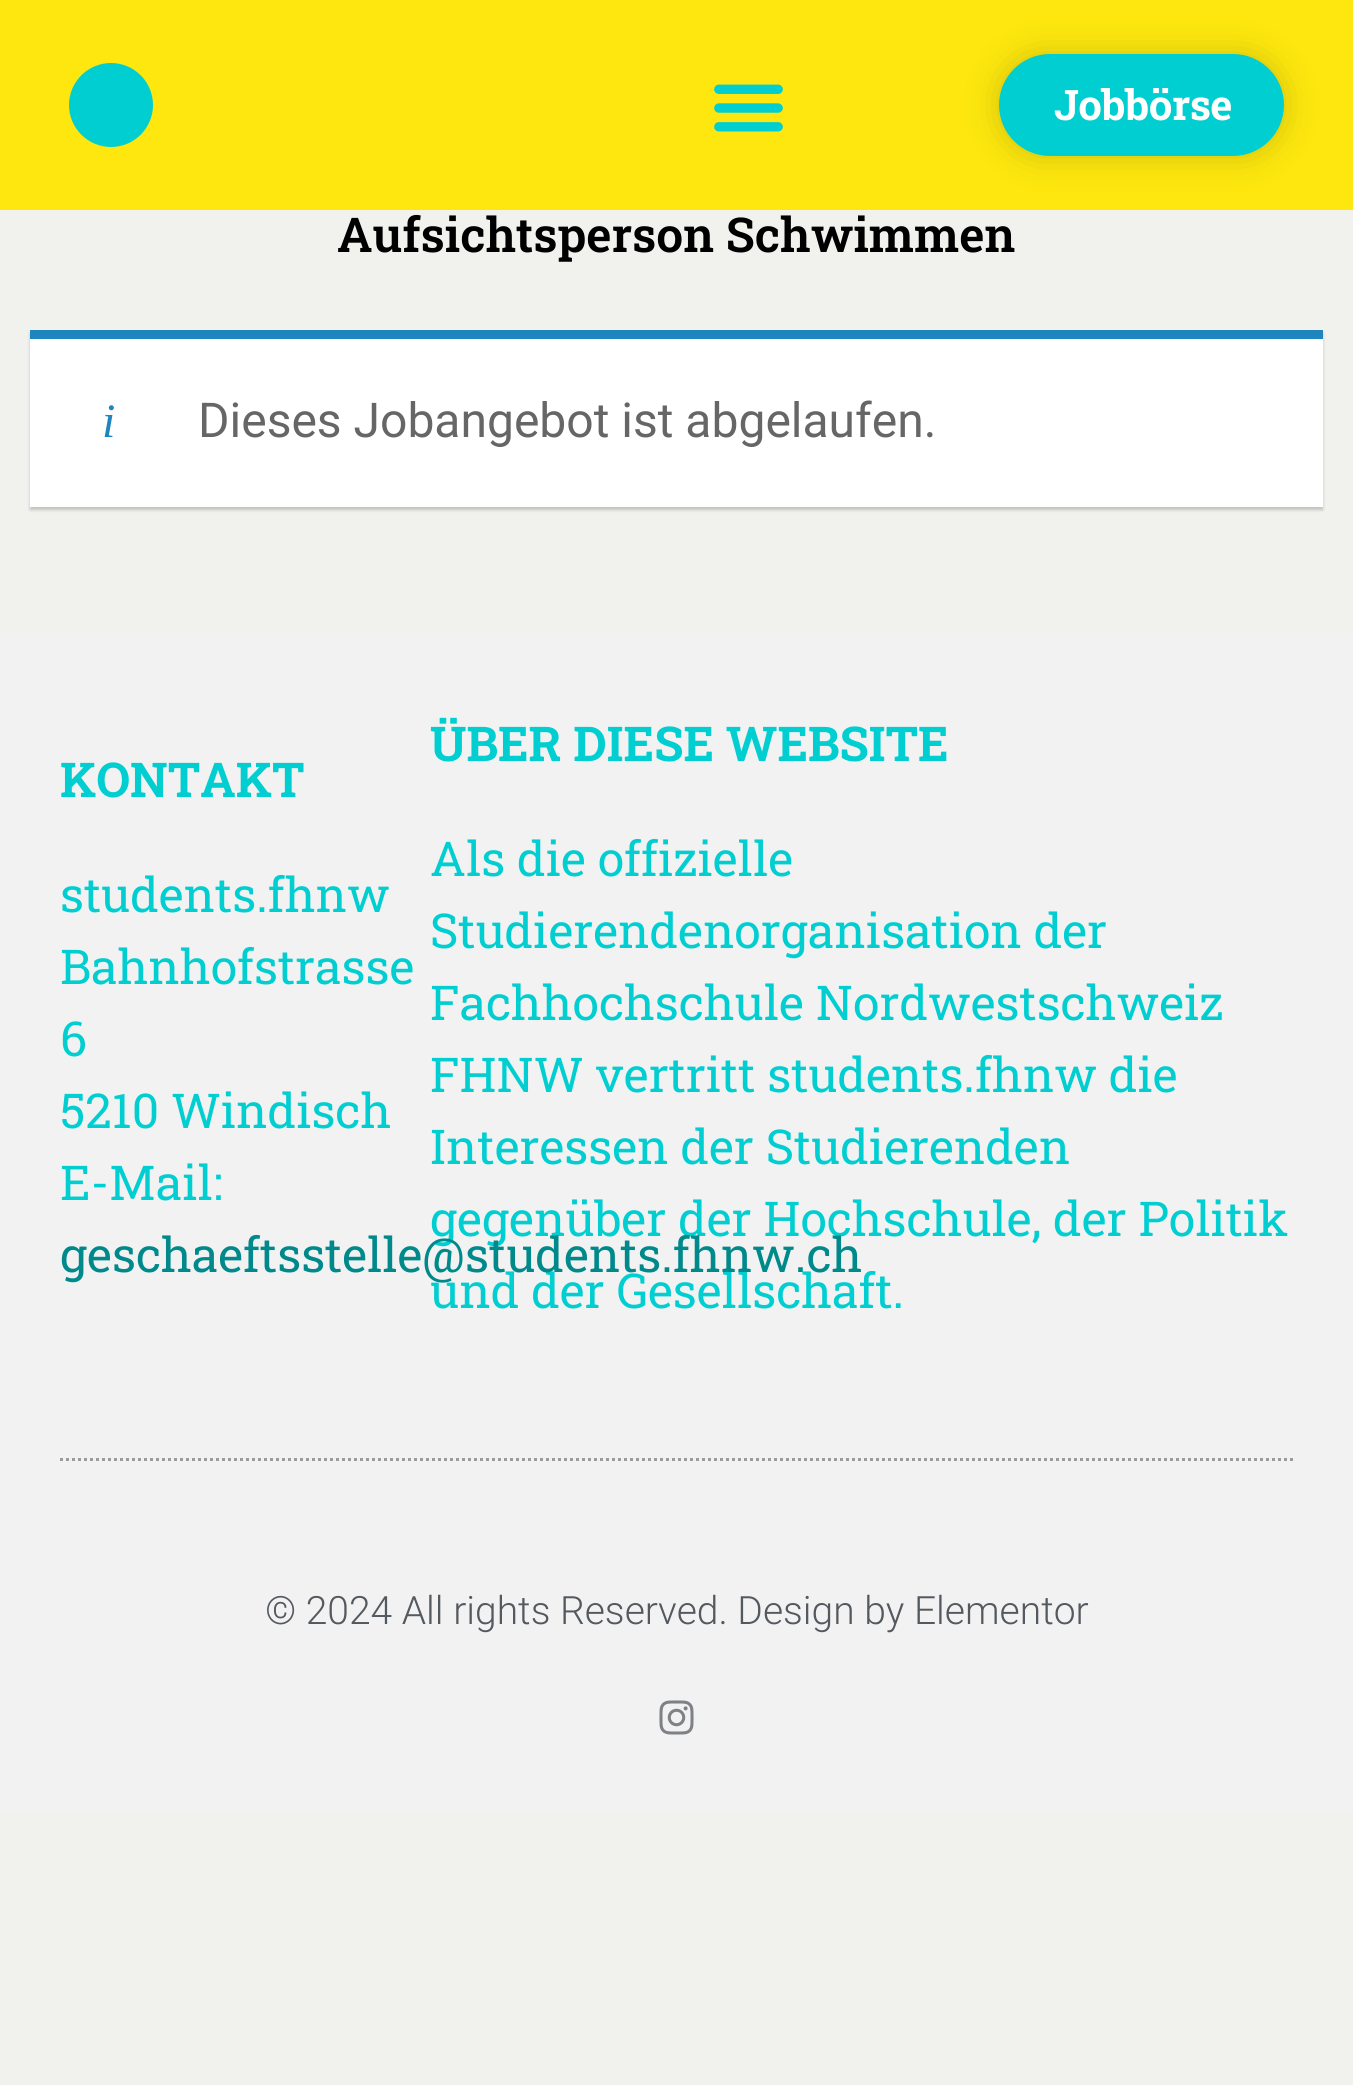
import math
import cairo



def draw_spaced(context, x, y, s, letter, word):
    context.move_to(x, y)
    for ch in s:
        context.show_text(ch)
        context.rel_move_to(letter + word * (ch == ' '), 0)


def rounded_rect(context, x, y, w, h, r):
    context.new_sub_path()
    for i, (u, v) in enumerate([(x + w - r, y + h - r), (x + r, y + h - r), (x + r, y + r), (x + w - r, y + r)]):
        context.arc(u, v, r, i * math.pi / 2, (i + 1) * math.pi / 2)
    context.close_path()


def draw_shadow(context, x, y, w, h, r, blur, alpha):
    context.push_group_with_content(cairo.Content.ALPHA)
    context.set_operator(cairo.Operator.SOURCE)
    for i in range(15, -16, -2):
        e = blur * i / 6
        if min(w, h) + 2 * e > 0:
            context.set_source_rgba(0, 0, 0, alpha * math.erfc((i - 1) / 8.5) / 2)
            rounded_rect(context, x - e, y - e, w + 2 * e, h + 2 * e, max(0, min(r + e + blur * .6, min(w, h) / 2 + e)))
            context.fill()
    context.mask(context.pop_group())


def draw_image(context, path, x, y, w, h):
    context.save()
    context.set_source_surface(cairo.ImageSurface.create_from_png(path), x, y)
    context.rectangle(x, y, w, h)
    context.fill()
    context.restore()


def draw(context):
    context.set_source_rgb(241 / 255, 241 / 255, 238 / 255)
    context.paint()
    context.set_source_rgb(253 / 255, 231 / 255, 14 / 255)
    context.rectangle(0, 0, 1353, 210)
    context.fill()
    context.set_source_rgb(0, 206 / 255, 209 / 255)
    context.arc(111, 105, 42, 0, 2 * math.pi)
    context.fill()
    draw_image(context, "images/1.png", 714, 84, 69, 48)
    context.set_source_rgb(0, 0, 0)
    draw_shadow(context, 999, 54, 285, 102, 51, 16.5, 0.17)
    context.set_source_rgb(0, 206 / 255, 209 / 255)
    rounded_rect(context, 999, 54, 285, 102, 51)
    context.fill()
    context.set_source_rgb(0, 0, 0)
    draw_shadow(context, 30, 333, 1293, 177, 0, 1.5, 0.2)
    context.set_source_rgb(1, 1, 1)
    context.rectangle(30, 339, 1293, 168)
    context.fill()
    context.set_source_rgb(30 / 255, 133 / 255, 190 / 255)
    context.rectangle(30, 330, 1293, 9)
    context.fill()
    context.set_source_rgb(242 / 255, 242 / 255, 242 / 255)
    context.rectangle(0, 633, 1353, 1179)
    context.fill()
    context.new_path()
    context.move_to(60, 1459.5)
    context.line_to(1293, 1459.5)
    context.set_source_rgb(155 / 255, 155 / 255, 155 / 255)
    context.set_line_width(3)
    context.set_dash([3, 3])
    context.stroke()
    draw_image(context, "images/2.png", 659, 1700, 35, 35)
    context.select_font_face("Roboto Slab", cairo.FontSlant.NORMAL, cairo.FontWeight.BOLD)
    context.set_font_size(42)
    context.set_source_rgb(1, 1, 1)
    draw_spaced(context, 1054, 120, "Jobbörse", -0.5, 0)
    context.select_font_face("Roboto Slab SemiBold")
    context.set_font_size(48)
    context.set_source_rgb(0, 0, 0)
    context.move_to(337, 252)
    context.show_text("Aufsichtsperson Schwimmen")
    context.select_font_face("Liberation Serif", cairo.FontSlant.ITALIC)
    context.set_source_rgb(30 / 255, 133 / 255, 190 / 255)
    context.move_to(102, 437)
    context.show_text("i")
    context.select_font_face("Roboto")
    context.set_source_rgb(102 / 255, 102 / 255, 102 / 255)
    context.move_to(198, 437)
    context.show_text("Dieses Jobangebot ist abgelaufen.")
    context.select_font_face("Roboto Slab", cairo.FontSlant.NORMAL, cairo.FontWeight.BOLD)
    context.set_source_rgb(0, 206 / 255, 209 / 255)
    context.move_to(430, 761)
    context.show_text("ÜBER DIESE WEBSITE")
    context.select_font_face("Roboto Slab")
    context.move_to(430, 876)
    context.show_text("Als die offizielle")
    context.move_to(430, 948)
    context.show_text("Studierendenorganisation der")
    context.move_to(430, 1020)
    context.show_text("Fachhochschule Nordwestschweiz")
    context.move_to(430, 1092)
    context.show_text("FHNW vertritt students.fhnw die")
    context.move_to(430, 1164)
    context.show_text("Interessen der Studierenden")
    context.move_to(430, 1236)
    context.show_text("gegenüber der Hochschule, der Politik")
    context.move_to(430, 1308)
    context.show_text("und der Gesellschaft.")
    context.select_font_face("Roboto Slab", cairo.FontSlant.NORMAL, cairo.FontWeight.BOLD)
    context.move_to(60, 797)
    context.show_text("KONTAKT")
    context.select_font_face("Roboto Slab")
    context.move_to(60, 912)
    context.show_text("students.fhnw")
    context.move_to(60, 984)
    context.show_text("Bahnhofstrasse")
    context.move_to(60, 1056)
    context.show_text("6")
    context.move_to(60, 1128)
    context.show_text("5210 Windisch")
    context.move_to(60, 1200)
    context.show_text("E-Mail:")
    context.set_source_rgb(0, 137 / 255, 139 / 255)
    context.move_to(60, 1272)
    context.show_text("geschaeftsstelle@students.fhnw.ch")
    context.select_font_face("Roboto Light")
    context.set_font_size(39)
    context.set_source_rgb(84 / 255, 89 / 255, 95 / 255)
    context.move_to(265, 1624)
    context.show_text("© 2024 All rights Reserved. Design by Elementor")


surface = cairo.ImageSurface(cairo.Format.RGB24, 1353, 2085)
context = cairo.Context(surface)
options = cairo.FontOptions()
options.set_hint_metrics(cairo.HintMetrics.OFF)
options.set_hint_style(cairo.HintStyle.NONE)
context.set_font_options(options)
context.set_miter_limit(4)
draw(context)
surface.write_to_png("out.png")
